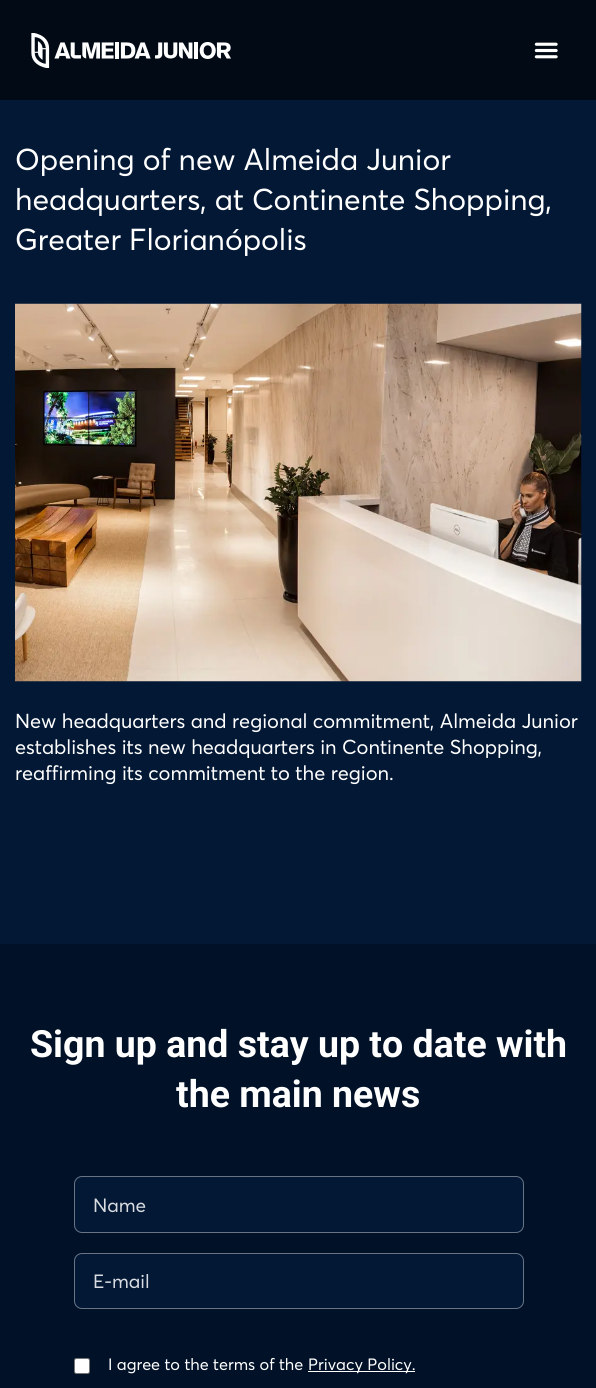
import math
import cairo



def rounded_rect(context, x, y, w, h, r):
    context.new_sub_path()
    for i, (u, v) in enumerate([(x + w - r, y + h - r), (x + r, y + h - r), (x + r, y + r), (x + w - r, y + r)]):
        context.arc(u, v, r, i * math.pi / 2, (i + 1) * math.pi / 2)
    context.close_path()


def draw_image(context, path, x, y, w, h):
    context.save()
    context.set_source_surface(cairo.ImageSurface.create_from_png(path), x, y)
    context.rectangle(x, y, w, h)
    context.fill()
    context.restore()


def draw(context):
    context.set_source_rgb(3 / 255, 24 / 255, 53 / 255)
    context.paint()
    context.set_source_rgb(1 / 255, 10 / 255, 21 / 255)
    context.rectangle(0, 0, 596, 100)
    context.fill()
    draw_image(context, "images/1.png", 31, 33, 200, 35)
    draw_image(context, "images/2.png", 534, 42, 24, 17)
    draw_image(context, "images/3.png", 15, 303, 567, 379)
    context.set_source_rgb(1 / 255, 17 / 255, 40 / 255)
    context.rectangle(0, 944, 596, 444)
    context.fill()
    context.set_source_rgb(3 / 255, 24 / 255, 53 / 255)
    rounded_rect(context, 74, 1176, 450, 57, 8)
    context.fill()
    rounded_rect(context, 74.5, 1176.5, 449, 56, 7.5)
    context.set_source_rgba(1, 1, 1, 0.4)
    context.set_line_width(1)
    context.stroke()
    context.set_source_rgb(3 / 255, 24 / 255, 53 / 255)
    rounded_rect(context, 74, 1253, 450, 56, 8)
    context.fill()
    rounded_rect(context, 74.5, 1253.5, 449, 55, 7.5)
    context.set_source_rgba(1, 1, 1, 0.4)
    context.stroke()
    context.set_source_rgb(1, 1, 1)
    rounded_rect(context, 74.5, 1358.5, 15, 15, 2)
    context.fill_preserve()
    context.set_source_rgb(118 / 255, 118 / 255, 118 / 255)
    context.stroke()
    context.set_source_rgb(1, 1, 1)
    context.rectangle(308, 1371, 107, 1)
    context.fill()
    context.select_font_face("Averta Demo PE")
    context.set_font_size(30)
    context.move_to(15, 170)
    context.show_text("Opening of new Almeida Junior")
    context.move_to(15, 210)
    context.show_text("headquarters, at Continente Shopping,")
    context.move_to(15, 250)
    context.show_text("Greater Florianópolis")
    context.set_font_size(20)
    context.move_to(15, 728)
    context.show_text("New headquarters and regional commitment, Almeida Junior")
    context.move_to(15, 754)
    context.show_text("establishes its new headquarters in Continente Shopping,")
    context.move_to(15, 780)
    context.show_text("reaffirming its commitment to the region.")
    context.select_font_face("Roboto", cairo.FontSlant.NORMAL, cairo.FontWeight.BOLD)
    context.set_font_size(37.5)
    context.move_to(30, 1057)
    context.show_text("Sign up and stay up to date with")
    context.move_to(176, 1107)
    context.show_text("the main news")
    context.select_font_face("Averta Demo PE")
    context.set_font_size(19)
    context.set_source_rgb(217 / 255, 220 / 255, 225 / 255)
    context.move_to(93, 1212)
    context.show_text("Name")
    context.move_to(93, 1288)
    context.show_text("E-mail")
    context.set_font_size(16.25)
    context.set_source_rgb(1, 1, 1)
    context.move_to(108, 1370)
    context.show_text("I agree to the terms of the")
    context.move_to(308, 1370)
    context.show_text("Privacy Policy.")


surface = cairo.ImageSurface(cairo.Format.RGB24, 596, 1388)
context = cairo.Context(surface)
options = cairo.FontOptions()
options.set_hint_metrics(cairo.HintMetrics.OFF)
options.set_hint_style(cairo.HintStyle.NONE)
context.set_font_options(options)
context.set_miter_limit(4)
draw(context)
surface.write_to_png("out.png")
